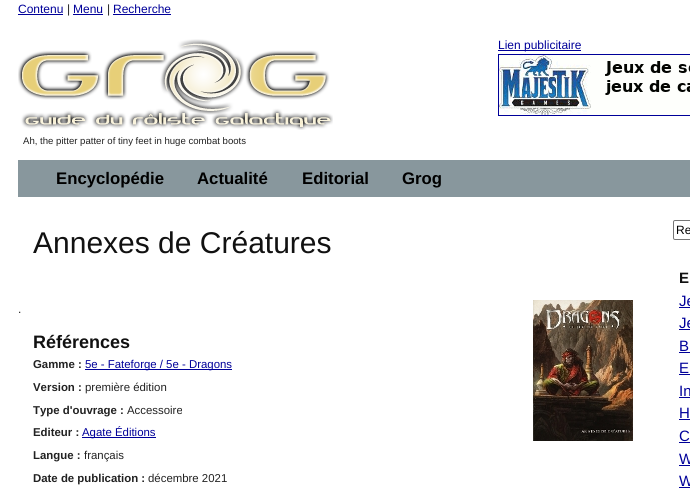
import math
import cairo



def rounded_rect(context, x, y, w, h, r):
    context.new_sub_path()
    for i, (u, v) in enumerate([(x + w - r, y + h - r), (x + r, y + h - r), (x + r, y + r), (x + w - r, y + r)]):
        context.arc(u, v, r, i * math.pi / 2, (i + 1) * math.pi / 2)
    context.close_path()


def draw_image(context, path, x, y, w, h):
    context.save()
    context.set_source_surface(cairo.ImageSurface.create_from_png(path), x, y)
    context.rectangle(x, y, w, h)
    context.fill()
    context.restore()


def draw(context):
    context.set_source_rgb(1, 1, 1)
    context.paint()
    context.set_source_rgb(0, 0, 153 / 255)
    context.rectangle(18, 14, 45, 1)
    context.fill()
    context.rectangle(73, 14, 30, 1)
    context.fill()
    context.rectangle(113, 14, 58, 1)
    context.fill()
    context.rectangle(498, 50, 83, 1)
    context.fill()
    context.rectangle(498.5, 54.5, 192, 61)
    context.set_line_width(1)
    context.stroke()
    draw_image(context, "images/1.png", 499, 55, 191, 60)
    draw_image(context, "images/2.png", 18, 39, 315, 91)
    context.set_source_rgb(136 / 255, 151 / 255, 157 / 255)
    context.rectangle(18, 160, 672, 37)
    context.fill()
    draw_image(context, "images/3.png", 533, 300, 100, 141)
    context.set_source_rgb(0, 0, 153 / 255)
    context.rectangle(85, 369, 147, 1)
    context.fill()
    context.rectangle(82, 437, 74, 1)
    context.fill()
    rounded_rect(context, 673.5, 220.5, 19, 19, 1.5)
    context.set_source_rgb(118 / 255, 118 / 255, 118 / 255)
    context.stroke()
    context.set_source_rgb(0, 0, 153 / 255)
    context.rectangle(679, 307, 11, 1)
    context.fill()
    context.rectangle(679, 329, 11, 1)
    context.fill()
    context.rectangle(679, 352, 11, 1)
    context.fill()
    context.rectangle(679, 374, 11, 1)
    context.fill()
    context.rectangle(679, 397, 11, 1)
    context.fill()
    context.rectangle(679, 419, 11, 1)
    context.fill()
    context.rectangle(679, 442, 11, 1)
    context.fill()
    context.rectangle(679, 465, 11, 1)
    context.fill()
    context.rectangle(679, 487, 11, 1)
    context.fill()
    context.select_font_face("Liberation Sans")
    context.set_font_size(12)
    context.move_to(18, 13)
    context.show_text("Contenu")
    context.set_source_rgb(34 / 255, 34 / 255, 34 / 255)
    context.move_to(67, 13)
    context.show_text("|")
    context.set_source_rgb(0, 0, 153 / 255)
    context.move_to(73, 13)
    context.show_text("Menu")
    context.set_source_rgb(34 / 255, 34 / 255, 34 / 255)
    context.move_to(107, 13)
    context.show_text("|")
    context.set_source_rgb(0, 0, 153 / 255)
    context.move_to(113, 13)
    context.show_text("Recherche")
    context.move_to(498, 49)
    context.show_text("Lien publicitaire")
    context.set_font_size(9.6)
    context.set_source_rgb(34 / 255, 34 / 255, 34 / 255)
    context.move_to(23, 144)
    context.show_text("Ah, the pitter patter of tiny feet in huge combat boots")
    context.select_font_face("Liberation Sans", cairo.FontSlant.NORMAL, cairo.FontWeight.BOLD)
    context.set_font_size(16.75)
    context.set_source_rgb(0, 0, 0)
    context.move_to(56, 184)
    context.show_text("Encyclopédie")
    context.move_to(197, 184)
    context.show_text("Actualité")
    context.move_to(302, 184)
    context.show_text("Editorial")
    context.move_to(402, 184)
    context.show_text("Grog")
    context.select_font_face("Liberation Sans")
    context.set_font_size(30)
    context.set_source_rgb(17 / 255, 17 / 255, 17 / 255)
    context.move_to(33, 253)
    context.show_text("Annexes de Créatures")
    context.set_font_size(12)
    context.set_source_rgb(34 / 255, 34 / 255, 34 / 255)
    context.move_to(18, 313)
    context.show_text(".")
    context.select_font_face("Liberation Sans", cairo.FontSlant.NORMAL, cairo.FontWeight.BOLD)
    context.set_font_size(18)
    context.set_source_rgb(17 / 255, 17 / 255, 17 / 255)
    context.move_to(33, 348)
    context.show_text("Références")
    context.set_font_size(11.4)
    context.set_source_rgb(34 / 255, 34 / 255, 34 / 255)
    context.move_to(33, 368)
    context.show_text("Gamme :")
    context.select_font_face("Liberation Sans")
    context.set_source_rgb(0, 0, 153 / 255)
    context.move_to(85, 368)
    context.show_text("5e - Fateforge / 5e - Dragons")
    context.select_font_face("Liberation Sans", cairo.FontSlant.NORMAL, cairo.FontWeight.BOLD)
    context.set_source_rgb(34 / 255, 34 / 255, 34 / 255)
    context.move_to(33, 391)
    context.show_text("Version :")
    context.select_font_face("Liberation Sans")
    context.move_to(85, 391)
    context.show_text("première édition")
    context.select_font_face("Liberation Sans", cairo.FontSlant.NORMAL, cairo.FontWeight.BOLD)
    context.move_to(33, 414)
    context.show_text("Type d'ouvrage :")
    context.select_font_face("Liberation Sans")
    context.move_to(127, 414)
    context.show_text("Accessoire")
    context.select_font_face("Liberation Sans", cairo.FontSlant.NORMAL, cairo.FontWeight.BOLD)
    context.move_to(33, 436)
    context.show_text("Editeur :")
    context.select_font_face("Liberation Sans")
    context.set_source_rgb(0, 0, 153 / 255)
    context.move_to(82, 436)
    context.show_text("Agate Éditions")
    context.select_font_face("Liberation Sans", cairo.FontSlant.NORMAL, cairo.FontWeight.BOLD)
    context.set_source_rgb(34 / 255, 34 / 255, 34 / 255)
    context.move_to(33, 459)
    context.show_text("Langue :")
    context.select_font_face("Liberation Sans")
    context.move_to(84, 459)
    context.show_text("français")
    context.select_font_face("Liberation Sans", cairo.FontSlant.NORMAL, cairo.FontWeight.BOLD)
    context.move_to(33, 482)
    context.show_text("Date de publication :")
    context.select_font_face("Liberation Sans")
    context.move_to(148, 482)
    context.show_text("décembre 2021")
    context.set_font_size(12)
    context.set_source_rgb(0, 0, 0)
    context.move_to(676, 234)
    context.show_text("Re")
    context.select_font_face("Liberation Sans", cairo.FontSlant.NORMAL, cairo.FontWeight.BOLD)
    context.set_font_size(15)
    context.set_source_rgb(17 / 255, 17 / 255, 17 / 255)
    context.move_to(679, 283)
    context.show_text("E")
    context.select_font_face("Liberation Sans")
    context.set_source_rgb(0, 0, 153 / 255)
    context.move_to(679, 306)
    context.show_text("Je")
    context.move_to(679, 328)
    context.show_text("Je")
    context.move_to(679, 351)
    context.show_text("B")
    context.move_to(679, 373)
    context.show_text("E")
    context.move_to(679, 396)
    context.show_text("In")
    context.move_to(679, 418)
    context.show_text("H")
    context.move_to(679, 441)
    context.show_text("C")
    context.move_to(679, 464)
    context.show_text("W")
    context.move_to(679, 486)
    context.show_text("W")


surface = cairo.ImageSurface(cairo.Format.RGB24, 690, 498)
context = cairo.Context(surface)
options = cairo.FontOptions()
options.set_hint_metrics(cairo.HintMetrics.OFF)
options.set_hint_style(cairo.HintStyle.NONE)
context.set_font_options(options)
context.set_miter_limit(4)
draw(context)
surface.write_to_png("out.png")
